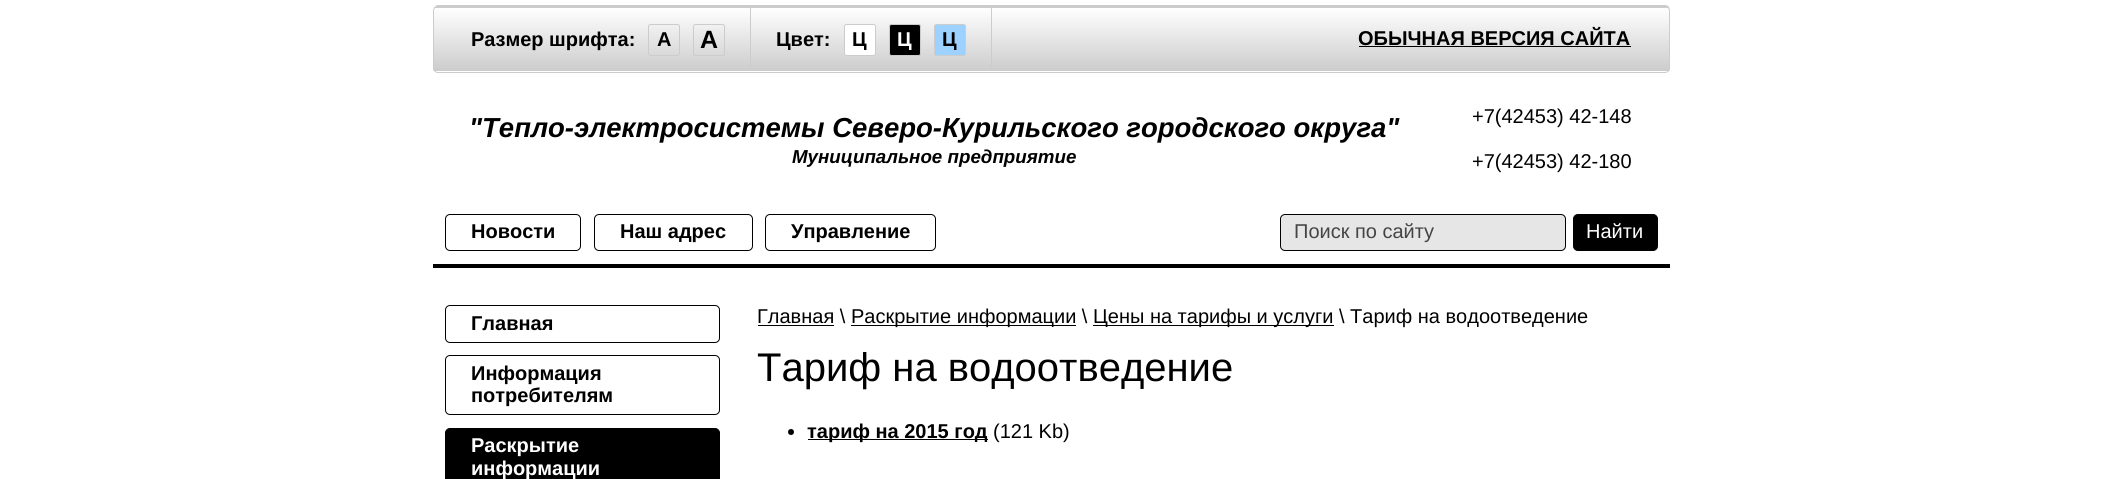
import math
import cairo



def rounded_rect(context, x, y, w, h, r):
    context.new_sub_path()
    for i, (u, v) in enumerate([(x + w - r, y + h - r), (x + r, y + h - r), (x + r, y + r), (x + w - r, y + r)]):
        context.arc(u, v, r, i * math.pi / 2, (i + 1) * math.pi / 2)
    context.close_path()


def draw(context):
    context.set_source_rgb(1, 1, 1)
    context.paint()
    context.set_source_rgb(0, 0, 0)
    context.rectangle(433, 264, 1237, 4)
    context.fill()
    context.set_source_rgb(204 / 255, 204 / 255, 204 / 255)
    context.new_path()
    context.move_to(438, 5)
    context.curve_to(436, 5, 434, 7, 433, 9)
    context.curve_to(434, 7, 436, 6, 438, 6)
    context.line_to(1665, 6)
    context.curve_to(1668, 6, 1670, 8, 1670, 11)
    context.curve_to(1670, 8, 1669, 5, 1665, 5)
    context.close_path()
    context.fill()
    context.save()
    rounded_rect(context, 433, 6, 1237, 67, 5)
    context.clip()
    gradient = cairo.LinearGradient(1051, -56, 1051, 7.5)
    gradient.add_color_stop_rgba(0, 1, 1, 1, 1)
    gradient.add_color_stop_rgba(1, 204 / 255, 204 / 255, 204 / 255, 1)
    context.set_source(gradient)
    context.rectangle(433, 6, 1237, 2)
    context.fill()
    gradient = cairo.LinearGradient(1051, 7.5, 1051, 71)
    gradient.add_color_stop_rgba(0, 1, 1, 1, 1)
    gradient.add_color_stop_rgba(1, 204 / 255, 204 / 255, 204 / 255, 1)
    context.set_source(gradient)
    context.rectangle(433, 8, 1237, 63)
    context.fill()
    context.restore()
    rounded_rect(context, 433.5, 6.5, 1236, 66, 4.5)
    context.set_line_width(1)
    context.stroke()
    context.rectangle(750, 8, 1, 63)
    context.fill()
    rounded_rect(context, 648.5, 24.5, 31, 31, 2)
    context.stroke()
    rounded_rect(context, 693.5, 24.5, 31, 31, 2)
    context.stroke()
    context.rectangle(991, 8, 1, 63)
    context.fill()
    context.set_source_rgb(1, 1, 1)
    rounded_rect(context, 844.5, 24.5, 31, 31, 2)
    context.fill_preserve()
    context.set_source_rgb(204 / 255, 204 / 255, 204 / 255)
    context.stroke()
    context.set_source_rgb(0, 0, 0)
    rounded_rect(context, 889.5, 24.5, 31, 31, 2)
    context.fill_preserve()
    context.set_source_rgb(204 / 255, 204 / 255, 204 / 255)
    context.stroke()
    context.set_source_rgb(157 / 255, 209 / 255, 1)
    rounded_rect(context, 934.5, 24.5, 31, 31, 2)
    context.fill_preserve()
    context.set_source_rgb(204 / 255, 204 / 255, 204 / 255)
    context.stroke()
    context.set_source_rgb(0, 0, 0)
    context.rectangle(1359, 46, 272, 1)
    context.fill()
    rounded_rect(context, 445.5, 214.5, 135, 36, 4.5)
    context.stroke()
    rounded_rect(context, 594.5, 214.5, 158, 36, 4.5)
    context.stroke()
    rounded_rect(context, 765.5, 214.5, 170, 36, 4.5)
    context.stroke()
    context.set_source_rgb(230 / 255, 230 / 255, 230 / 255)
    rounded_rect(context, 1280.5, 214.5, 285, 36, 4.5)
    context.fill_preserve()
    context.set_source_rgb(0, 0, 0)
    context.stroke()
    rounded_rect(context, 1573.5, 214.5, 84, 36, 4.5)
    context.fill_preserve()
    context.stroke()
    rounded_rect(context, 445.5, 305.5, 274, 37, 4.5)
    context.stroke()
    rounded_rect(context, 445.5, 355.5, 274, 59, 4.5)
    context.stroke()
    rounded_rect(context, 445.5, 428.5, 274, 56, 4.5)
    context.fill_preserve()
    context.stroke()
    context.rectangle(758, 325, 76, 1)
    context.fill()
    context.rectangle(851, 325, 225, 1)
    context.fill()
    context.rectangle(1093, 325, 241, 1)
    context.fill()
    context.arc(791, 432, 3, 0, 2 * math.pi)
    context.fill()
    context.rectangle(808, 439, 180, 1)
    context.fill()
    context.select_font_face("Liberation Sans", cairo.FontSlant.NORMAL, cairo.FontWeight.BOLD)
    context.set_font_size(20)
    context.move_to(471, 46)
    context.show_text("Размер шрифта:")
    context.move_to(657, 46)
    context.show_text("A")
    context.set_font_size(25)
    context.move_to(700, 48)
    context.show_text("A")
    context.set_font_size(20)
    context.move_to(776, 46)
    context.show_text("Цвет:")
    context.move_to(852, 46)
    context.show_text("Ц")
    context.set_source_rgb(1, 1, 1)
    context.move_to(897, 46)
    context.show_text("Ц")
    context.set_source_rgb(0, 0, 0)
    context.move_to(942, 46)
    context.show_text("Ц")
    context.move_to(1358, 45)
    context.show_text("ОБЫЧНАЯ ВЕРСИЯ САЙТА")
    context.select_font_face("Liberation Sans", cairo.FontSlant.ITALIC, cairo.FontWeight.BOLD)
    context.set_font_size(27.5)
    context.move_to(469, 137)
    context.show_text("\"Тепло-электросистемы Северо-Курильского городского округа\"")
    context.set_font_size(18.75)
    context.move_to(792, 163)
    context.show_text("Муниципальное предприятие")
    context.select_font_face("Liberation Sans")
    context.set_font_size(20)
    context.move_to(1472, 123)
    context.show_text("+7(42453) 42-148")
    context.move_to(1472, 168)
    context.show_text("+7(42453) 42-180")
    context.select_font_face("Liberation Sans", cairo.FontSlant.NORMAL, cairo.FontWeight.BOLD)
    context.move_to(471, 238)
    context.show_text("Новости")
    context.move_to(620, 238)
    context.show_text("Наш адрес")
    context.move_to(791, 238)
    context.show_text("Управление")
    context.select_font_face("Liberation Sans")
    context.set_source_rgb(69 / 255, 69 / 255, 69 / 255)
    context.move_to(1294, 238)
    context.show_text("Поиск по сайту")
    context.set_source_rgb(1, 1, 1)
    context.move_to(1586, 238)
    context.show_text("Найти")
    context.select_font_face("Liberation Sans", cairo.FontSlant.NORMAL, cairo.FontWeight.BOLD)
    context.set_source_rgb(0, 0, 0)
    context.move_to(471, 330)
    context.show_text("Главная")
    context.move_to(471, 380)
    context.show_text("Информация")
    context.move_to(471, 402)
    context.show_text("потребителям")
    context.set_source_rgb(1, 1, 1)
    context.move_to(471, 452)
    context.show_text("Раскрытие")
    context.move_to(471, 475)
    context.show_text("информации")
    context.select_font_face("Liberation Sans")
    context.set_source_rgb(0, 0, 0)
    context.move_to(757, 323)
    context.show_text("Главная \\")
    context.move_to(851, 323)
    context.show_text("Раскрытие информации \\")
    context.move_to(1093, 323)
    context.show_text("Цены на тарифы и услуги \\ Тариф на водоотведение")
    context.set_font_size(40)
    context.move_to(757, 381)
    context.show_text("Тариф на водоотведение")
    context.select_font_face("Liberation Sans", cairo.FontSlant.NORMAL, cairo.FontWeight.BOLD)
    context.set_font_size(20)
    context.move_to(807, 438)
    context.show_text("тариф на 2015 год")
    context.select_font_face("Liberation Sans")
    context.move_to(993, 438)
    context.show_text("(121 Kb)")


surface = cairo.ImageSurface(cairo.Format.RGB24, 2101, 479)
context = cairo.Context(surface)
options = cairo.FontOptions()
options.set_hint_metrics(cairo.HintMetrics.OFF)
options.set_hint_style(cairo.HintStyle.NONE)
context.set_font_options(options)
context.set_miter_limit(4)
draw(context)
surface.write_to_png("out.png")
